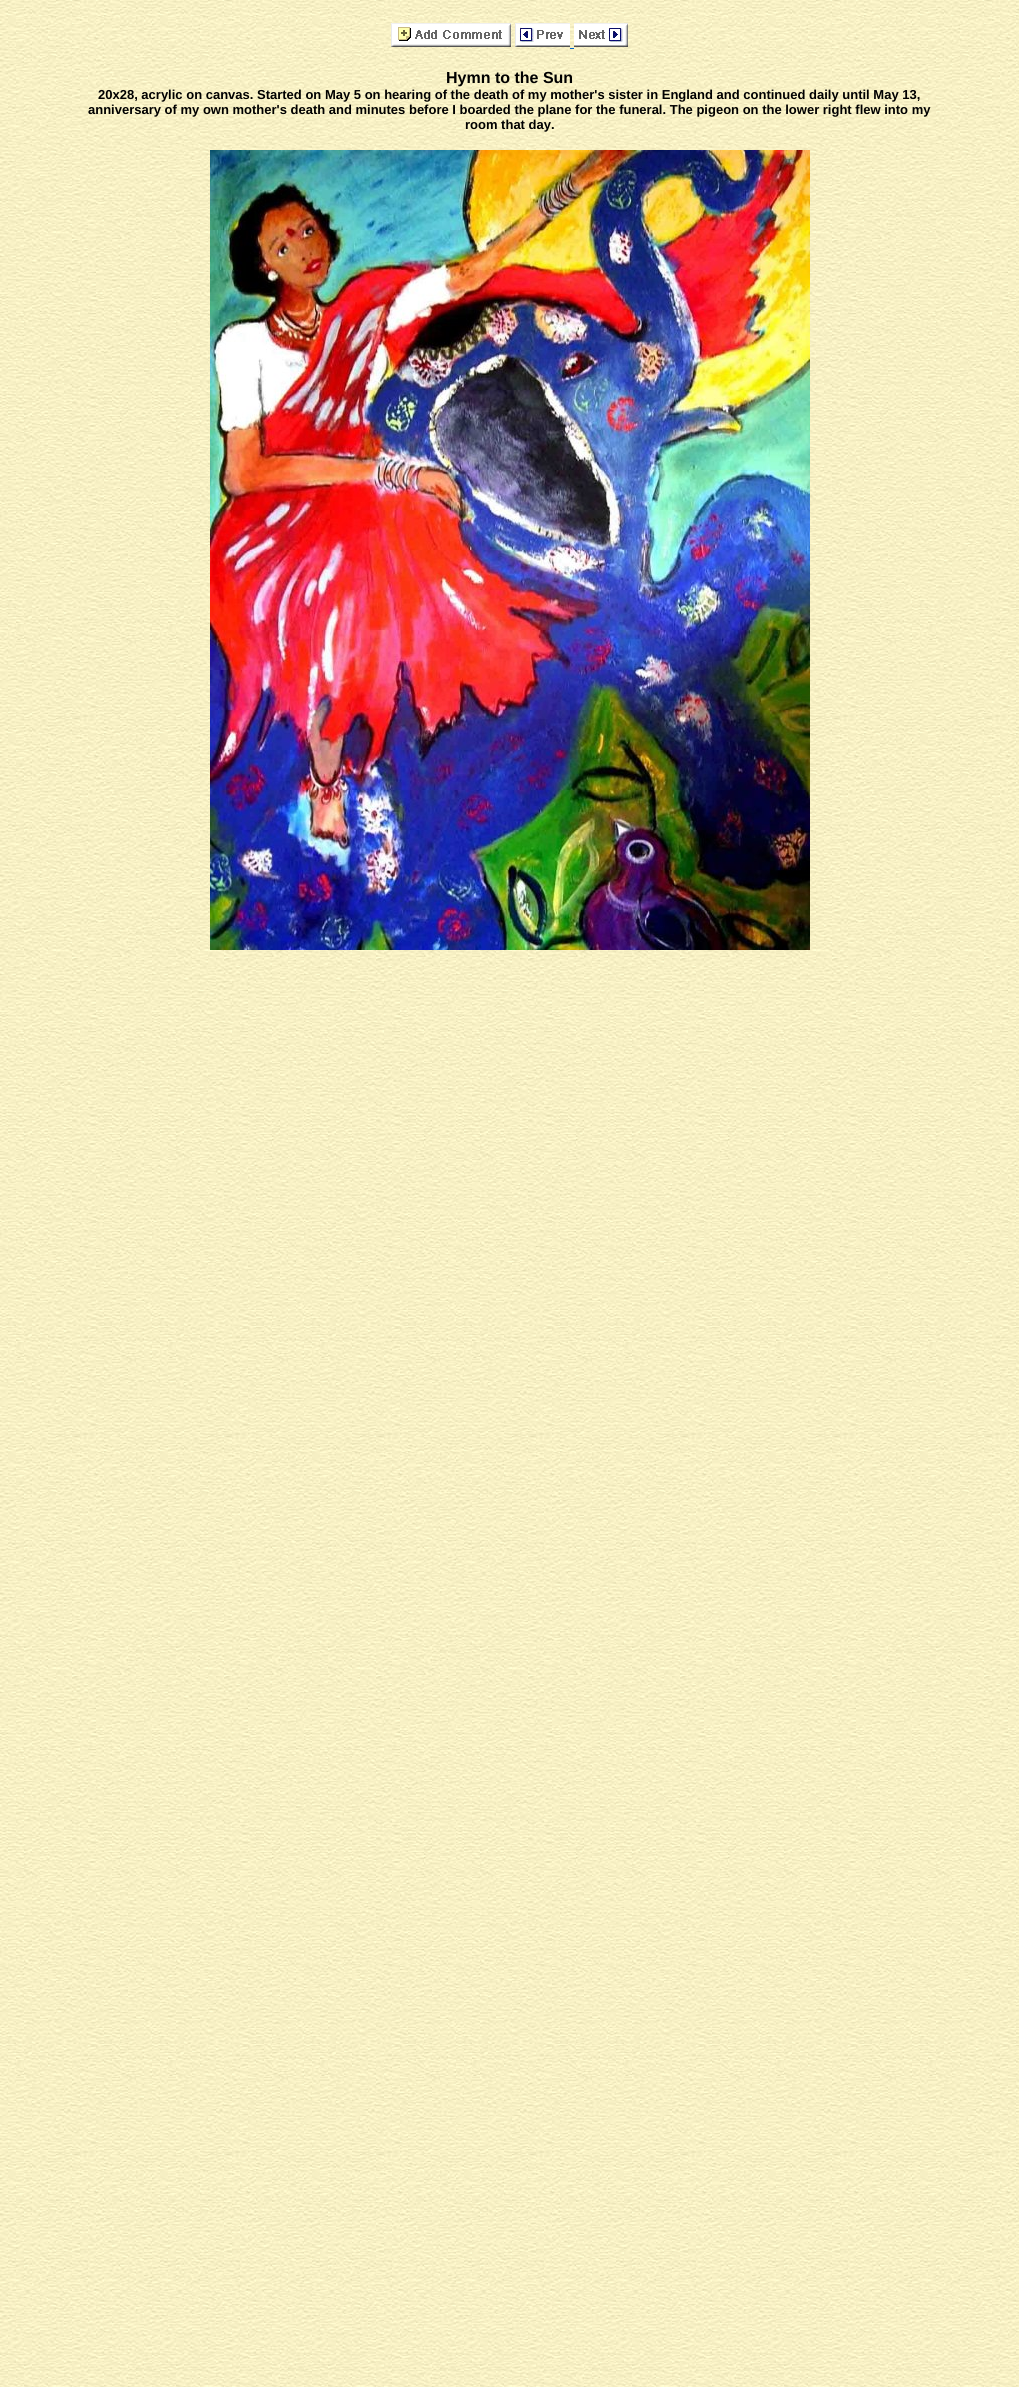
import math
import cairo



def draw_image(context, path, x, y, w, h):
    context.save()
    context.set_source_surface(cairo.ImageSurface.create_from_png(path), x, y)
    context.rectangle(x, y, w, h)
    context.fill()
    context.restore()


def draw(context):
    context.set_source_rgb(1, 1, 1)
    context.paint()
    draw_image(context, "images/1.png", 0, 0, 1019, 2387)
    draw_image(context, "images/2.png", 391, 23, 120, 24)
    draw_image(context, "images/3.png", 515, 23, 55, 24)
    draw_image(context, "images/4.png", 574, 23, 54, 24)
    context.set_source_rgb(0, 102 / 255, 204 / 255)
    context.rectangle(570, 48, 4, 1)
    context.fill()
    draw_image(context, "images/5.png", 210, 150, 600, 800)
    context.select_font_face("Liberation Sans", cairo.FontSlant.NORMAL, cairo.FontWeight.BOLD)
    context.set_font_size(16)
    context.set_source_rgb(0, 0, 0)
    context.move_to(446, 83)
    context.show_text("Hymn to the Sun")
    context.set_font_size(13)
    context.move_to(98, 99)
    context.show_text("20x28, acrylic on canvas. Started on May 5 on hearing of the death of my mother's sister in England and continued daily until May 13,")
    context.move_to(88, 114)
    context.show_text("anniversary of my own mother's death and minutes before I boarded the plane for the funeral. The pigeon on the lower right flew into my")
    context.move_to(465, 129)
    context.show_text("room that day.")


surface = cairo.ImageSurface(cairo.Format.RGB24, 1019, 2387)
context = cairo.Context(surface)
options = cairo.FontOptions()
options.set_hint_metrics(cairo.HintMetrics.OFF)
options.set_hint_style(cairo.HintStyle.NONE)
context.set_font_options(options)
context.set_miter_limit(4)
draw(context)
surface.write_to_png("out.png")
